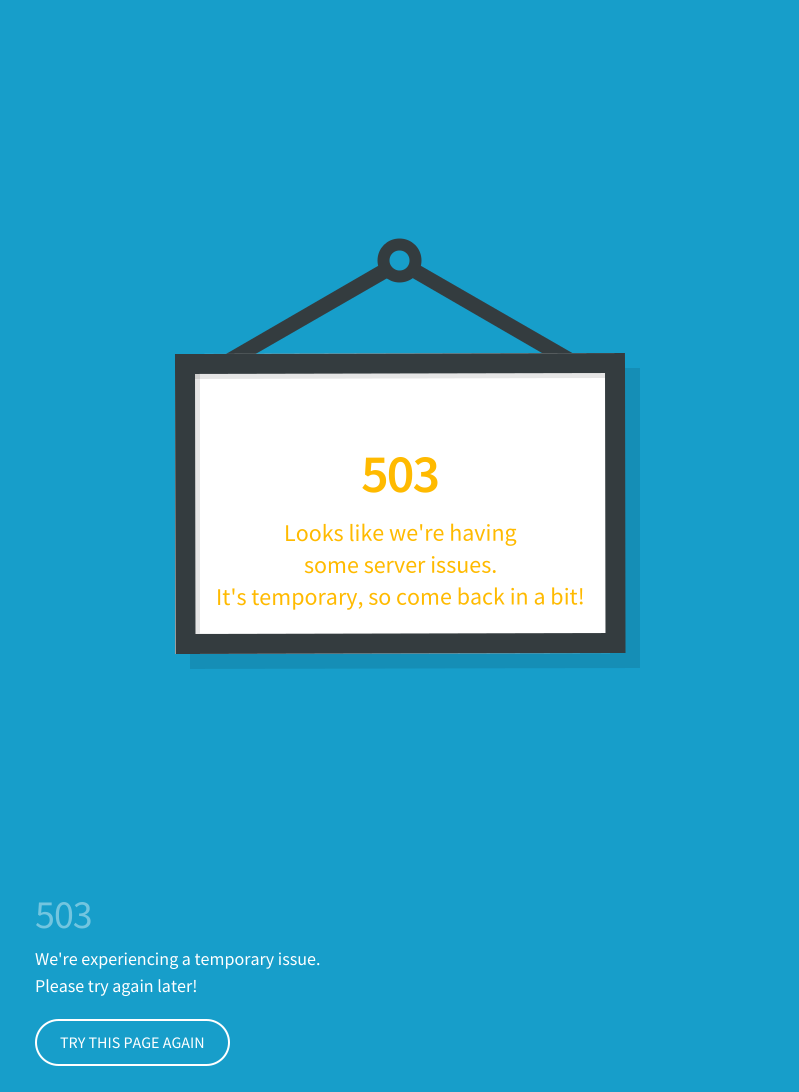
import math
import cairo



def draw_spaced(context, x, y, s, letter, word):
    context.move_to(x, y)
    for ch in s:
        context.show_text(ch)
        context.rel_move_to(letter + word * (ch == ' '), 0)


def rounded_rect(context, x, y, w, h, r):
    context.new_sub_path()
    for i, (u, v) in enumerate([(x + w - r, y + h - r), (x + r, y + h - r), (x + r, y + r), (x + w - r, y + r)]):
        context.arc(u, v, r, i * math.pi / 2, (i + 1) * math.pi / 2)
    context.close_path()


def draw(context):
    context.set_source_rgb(23 / 255, 158 / 255, 202 / 255)
    context.paint()
    context.new_path()
    context.move_to(399.5, 244.5)
    context.curve_to(408.5, 244.5, 415.5, 251.5, 415.5, 260.5)
    context.curve_to(415.5, 269.5, 408.5, 276.5, 399.5, 276.5)
    context.curve_to(391, 276.5, 383.5, 269.5, 383.5, 260.5)
    context.curve_to(383.5, 251.5, 390.5, 244.5, 399.5, 244.5)
    context.close_path()
    context.set_source_rgb(52 / 255, 60 / 255, 63 / 255)
    context.set_line_width(12)
    context.stroke()
    context.new_path()
    context.move_to(219, 358)
    context.line_to(383, 263)
    context.line_to(391, 276)
    context.line_to(226, 371)
    context.close_path()
    context.fill()
    context.new_path()
    context.move_to(416, 263)
    context.line_to(581, 358)
    context.line_to(573, 371)
    context.line_to(409, 276)
    context.close_path()
    context.fill()
    context.set_source_rgb(21 / 255, 142 / 255, 182 / 255)
    context.new_path()
    context.move_to(190, 654)
    context.line_to(190, 669)
    context.line_to(640, 668)
    context.line_to(640, 368)
    context.line_to(625, 368)
    context.line_to(625, 653)
    context.close_path()
    context.fill()
    context.set_source_rgb(1, 1, 1)
    context.new_path()
    context.move_to(175, 354)
    context.line_to(625, 353)
    context.line_to(625, 653)
    context.line_to(175, 654)
    context.close_path()
    context.fill()
    context.set_source_rgb(230 / 255, 230 / 255, 230 / 255)
    context.rectangle(195, 374, 5, 260)
    context.fill()
    context.set_source_rgba(0, 0, 0, 0.1)
    context.new_path()
    context.move_to(195, 374)
    context.line_to(605, 373)
    context.line_to(605, 378)
    context.line_to(195, 379)
    context.close_path()
    context.fill()
    context.new_path()
    context.move_to(185, 364)
    context.line_to(615, 363)
    context.line_to(615.5, 643)
    context.line_to(185.5, 644)
    context.close_path()
    context.set_source_rgb(52 / 255, 60 / 255, 63 / 255)
    context.set_line_width(20)
    context.stroke()
    rounded_rect(context, 36, 1020, 193, 45, 22.5)
    context.set_source_rgb(1, 1, 1)
    context.set_line_width(2)
    context.stroke()
    context.select_font_face("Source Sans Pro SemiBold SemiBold")
    context.set_font_size(54)
    context.set_source_rgb(1, 186 / 255, 0)
    context.save()
    context.translate(361, 492)
    context.rotate(-0.1 * math.pi / 180)
    draw_spaced(context, 0, 0, "503", -2, 0)
    context.restore()
    context.select_font_face("Source Sans Pro")
    context.set_font_size(24)
    context.save()
    context.translate(284, 541)
    context.rotate(-0.1 * math.pi / 180)
    context.move_to(0, 0)
    context.show_text("Looks like we're having")
    context.restore()
    context.save()
    context.translate(304, 573)
    context.rotate(-0.1 * math.pi / 180)
    context.move_to(0, 0)
    context.show_text("some server issues.")
    context.restore()
    context.save()
    context.translate(216, 605)
    context.rotate(-0.1 * math.pi / 180)
    context.move_to(0, 0)
    context.show_text("It's temporary, so come back in a bit!")
    context.restore()
    context.set_font_size(40)
    context.set_source_rgb(115 / 255, 197 / 255, 223 / 255)
    draw_spaced(context, 35, 928, "503", -1, 0)
    context.set_font_size(18)
    context.set_source_rgb(1, 1, 1)
    context.move_to(35, 965)
    context.show_text("We're experiencing a temporary issue.")
    context.move_to(35, 992)
    context.show_text("Please try again later!")
    context.set_font_size(16)
    context.move_to(60, 1048)
    context.show_text("TRY THIS PAGE AGAIN")


surface = cairo.ImageSurface(cairo.Format.RGB24, 799, 1092)
context = cairo.Context(surface)
options = cairo.FontOptions()
options.set_hint_metrics(cairo.HintMetrics.OFF)
options.set_hint_style(cairo.HintStyle.NONE)
context.set_font_options(options)
context.set_miter_limit(4)
draw(context)
surface.write_to_png("out.png")
